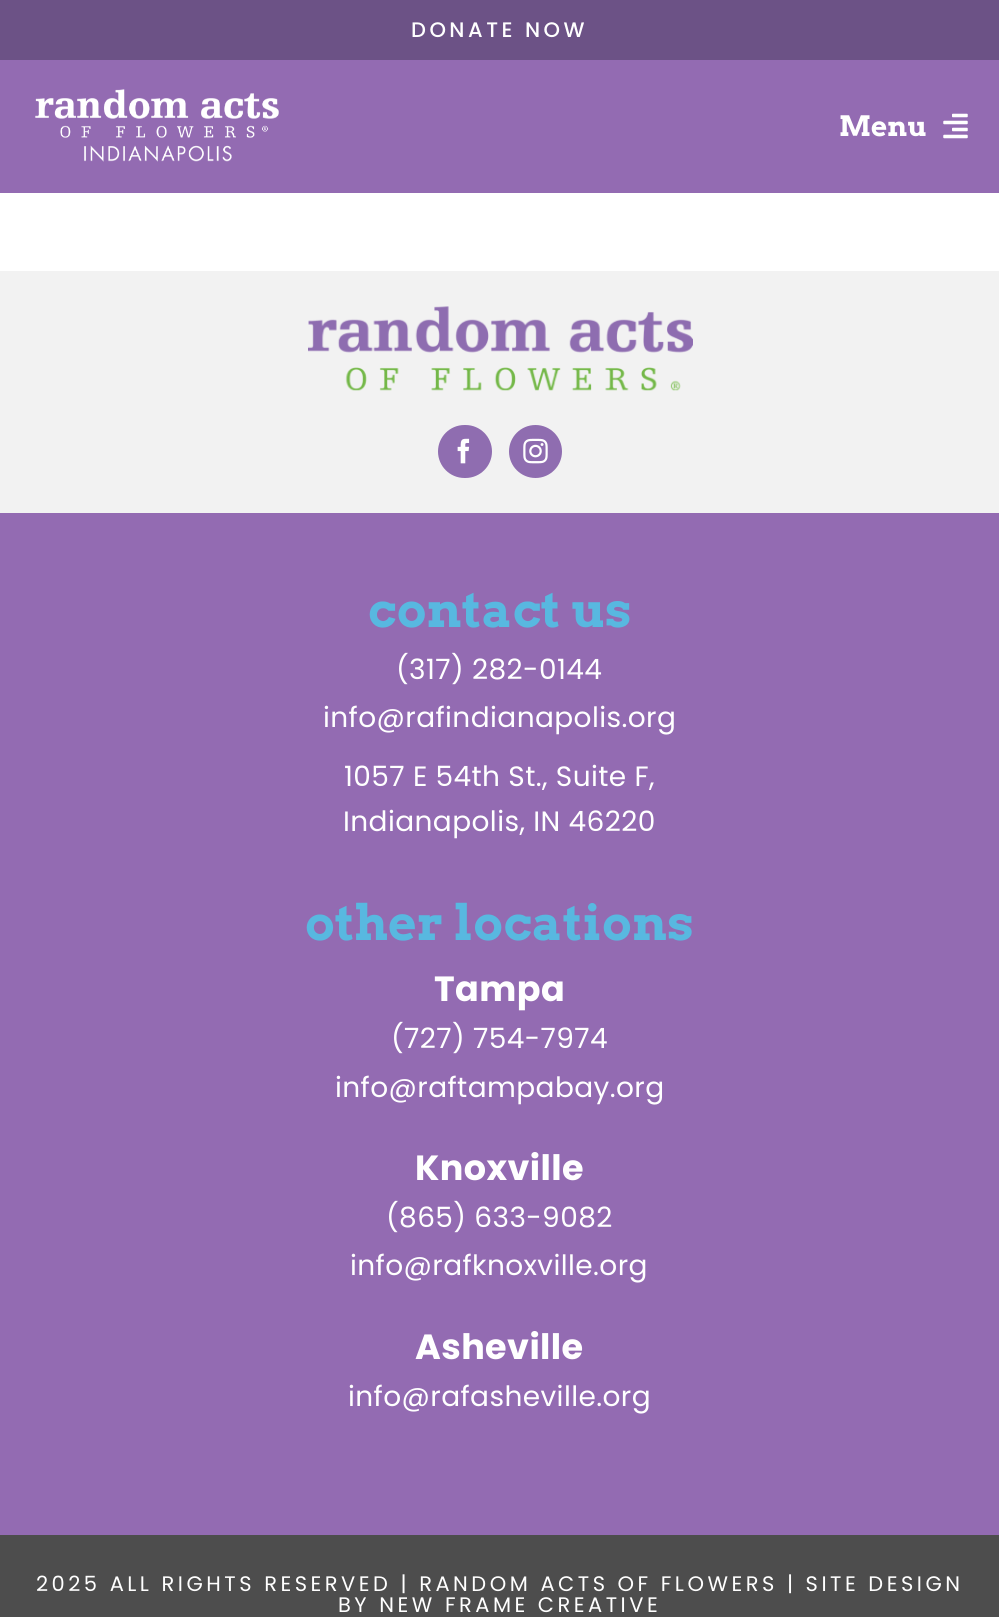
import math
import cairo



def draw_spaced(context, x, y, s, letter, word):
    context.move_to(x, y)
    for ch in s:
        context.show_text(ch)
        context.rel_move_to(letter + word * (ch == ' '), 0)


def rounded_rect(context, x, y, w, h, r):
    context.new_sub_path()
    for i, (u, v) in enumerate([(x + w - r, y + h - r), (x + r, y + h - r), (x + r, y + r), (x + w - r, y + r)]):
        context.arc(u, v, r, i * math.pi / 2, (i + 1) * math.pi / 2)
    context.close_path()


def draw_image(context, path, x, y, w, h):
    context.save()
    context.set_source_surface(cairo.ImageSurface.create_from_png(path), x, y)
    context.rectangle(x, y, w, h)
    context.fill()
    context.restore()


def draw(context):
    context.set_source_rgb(1, 1, 1)
    context.paint()
    context.set_source_rgb(108 / 255, 82 / 255, 134 / 255)
    context.rectangle(0, 0, 999, 60)
    context.fill()
    context.set_source_rgb(147 / 255, 107 / 255, 178 / 255)
    context.rectangle(0, 60, 999, 133)
    context.fill()
    draw_image(context, "images/1.png", 35, 89, 244, 73)
    draw_image(context, "images/2.png", 943, 113, 25, 26)
    context.set_source_rgb(242 / 255, 242 / 255, 242 / 255)
    context.rectangle(0, 271, 999, 242)
    context.fill()
    draw_image(context, "images/3.png", 308, 306, 385, 85)
    context.set_source_rgb(143 / 255, 109 / 255, 176 / 255)
    rounded_rect(context, 438, 425, 54, 53, 26.5)
    context.fill()
    draw_image(context, "images/4.png", 457, 438, 13, 26)
    context.arc(535.5, 451.5, 26.5, 0, 2 * math.pi)
    context.fill()
    draw_image(context, "images/5.png", 523, 438, 25, 26)
    context.set_source_rgb(147 / 255, 107 / 255, 178 / 255)
    context.rectangle(0, 513, 999, 1022)
    context.fill()
    context.set_source_rgb(77 / 255, 77 / 255, 77 / 255)
    context.rectangle(0, 1535, 999, 82)
    context.fill()
    context.select_font_face("Poppins Medium")
    context.set_font_size(21)
    context.set_source_rgb(1, 1, 1)
    draw_spaced(context, 411, 37, "DONATE NOW", 3.5, 0)
    context.select_font_face("Arvo", cairo.FontSlant.NORMAL, cairo.FontWeight.BOLD)
    context.set_font_size(28)
    context.move_to(839, 136)
    context.show_text("Menu")
    context.set_font_size(49)
    context.set_source_rgb(88 / 255, 184 / 255, 224 / 255)
    draw_spaced(context, 368, 627, "contact us", 0.4, 0)
    context.select_font_face("Poppins")
    context.set_font_size(28)
    context.set_source_rgb(1, 1, 1)
    draw_spaced(context, 396, 679, "(317) 282-0144", 0.4, 0)
    draw_spaced(context, 323, 727, "info@rafindianapolis.org", 0.4, 0)
    draw_spaced(context, 344, 786, "1057 E 54th St., Suite F,", 0.4, 0)
    draw_spaced(context, 343, 831, "Indianapolis, IN 46220", 0.4, 0)
    context.select_font_face("Arvo", cairo.FontSlant.NORMAL, cairo.FontWeight.BOLD)
    context.set_font_size(49)
    context.set_source_rgb(88 / 255, 184 / 255, 224 / 255)
    draw_spaced(context, 305, 940, "other locations", 0.4, 0)
    context.select_font_face("Poppins", cairo.FontSlant.NORMAL, cairo.FontWeight.BOLD)
    context.set_font_size(35)
    context.set_source_rgb(1, 1, 1)
    draw_spaced(context, 434, 1001, "Tampa", 0.4, 0)
    context.select_font_face("Poppins")
    context.set_font_size(28)
    draw_spaced(context, 391, 1048, "(727) 754-7974", 0.4, 0)
    draw_spaced(context, 335, 1097, "info@raftampabay.org", 0.4, 0)
    context.select_font_face("Poppins", cairo.FontSlant.NORMAL, cairo.FontWeight.BOLD)
    context.set_font_size(35)
    draw_spaced(context, 415, 1180, "Knoxville", 0.4, 0)
    context.select_font_face("Poppins")
    context.set_font_size(28)
    draw_spaced(context, 386, 1227, "(865) 633-9082", 0.4, 0)
    draw_spaced(context, 350, 1275, "info@rafknoxville.org", 0.4, 0)
    context.select_font_face("Poppins", cairo.FontSlant.NORMAL, cairo.FontWeight.BOLD)
    context.set_font_size(35)
    draw_spaced(context, 415, 1359, "Asheville", 0.4, 0)
    context.select_font_face("Poppins")
    context.set_font_size(28)
    draw_spaced(context, 348, 1406, "info@rafasheville.org", 0.4, 0)
    context.set_font_size(21)
    draw_spaced(context, 36, 1591, "2025 ALL RIGHTS RESERVED | RANDOM ACTS OF FLOWERS | SITE DESIGN", 3.5, 0)
    draw_spaced(context, 338, 1612, "BY NEW FRAME CREATIVE", 3.5, 0)


surface = cairo.ImageSurface(cairo.Format.RGB24, 999, 1617)
context = cairo.Context(surface)
options = cairo.FontOptions()
options.set_hint_metrics(cairo.HintMetrics.OFF)
options.set_hint_style(cairo.HintStyle.NONE)
context.set_font_options(options)
context.set_miter_limit(4)
draw(context)
surface.write_to_png("out.png")
